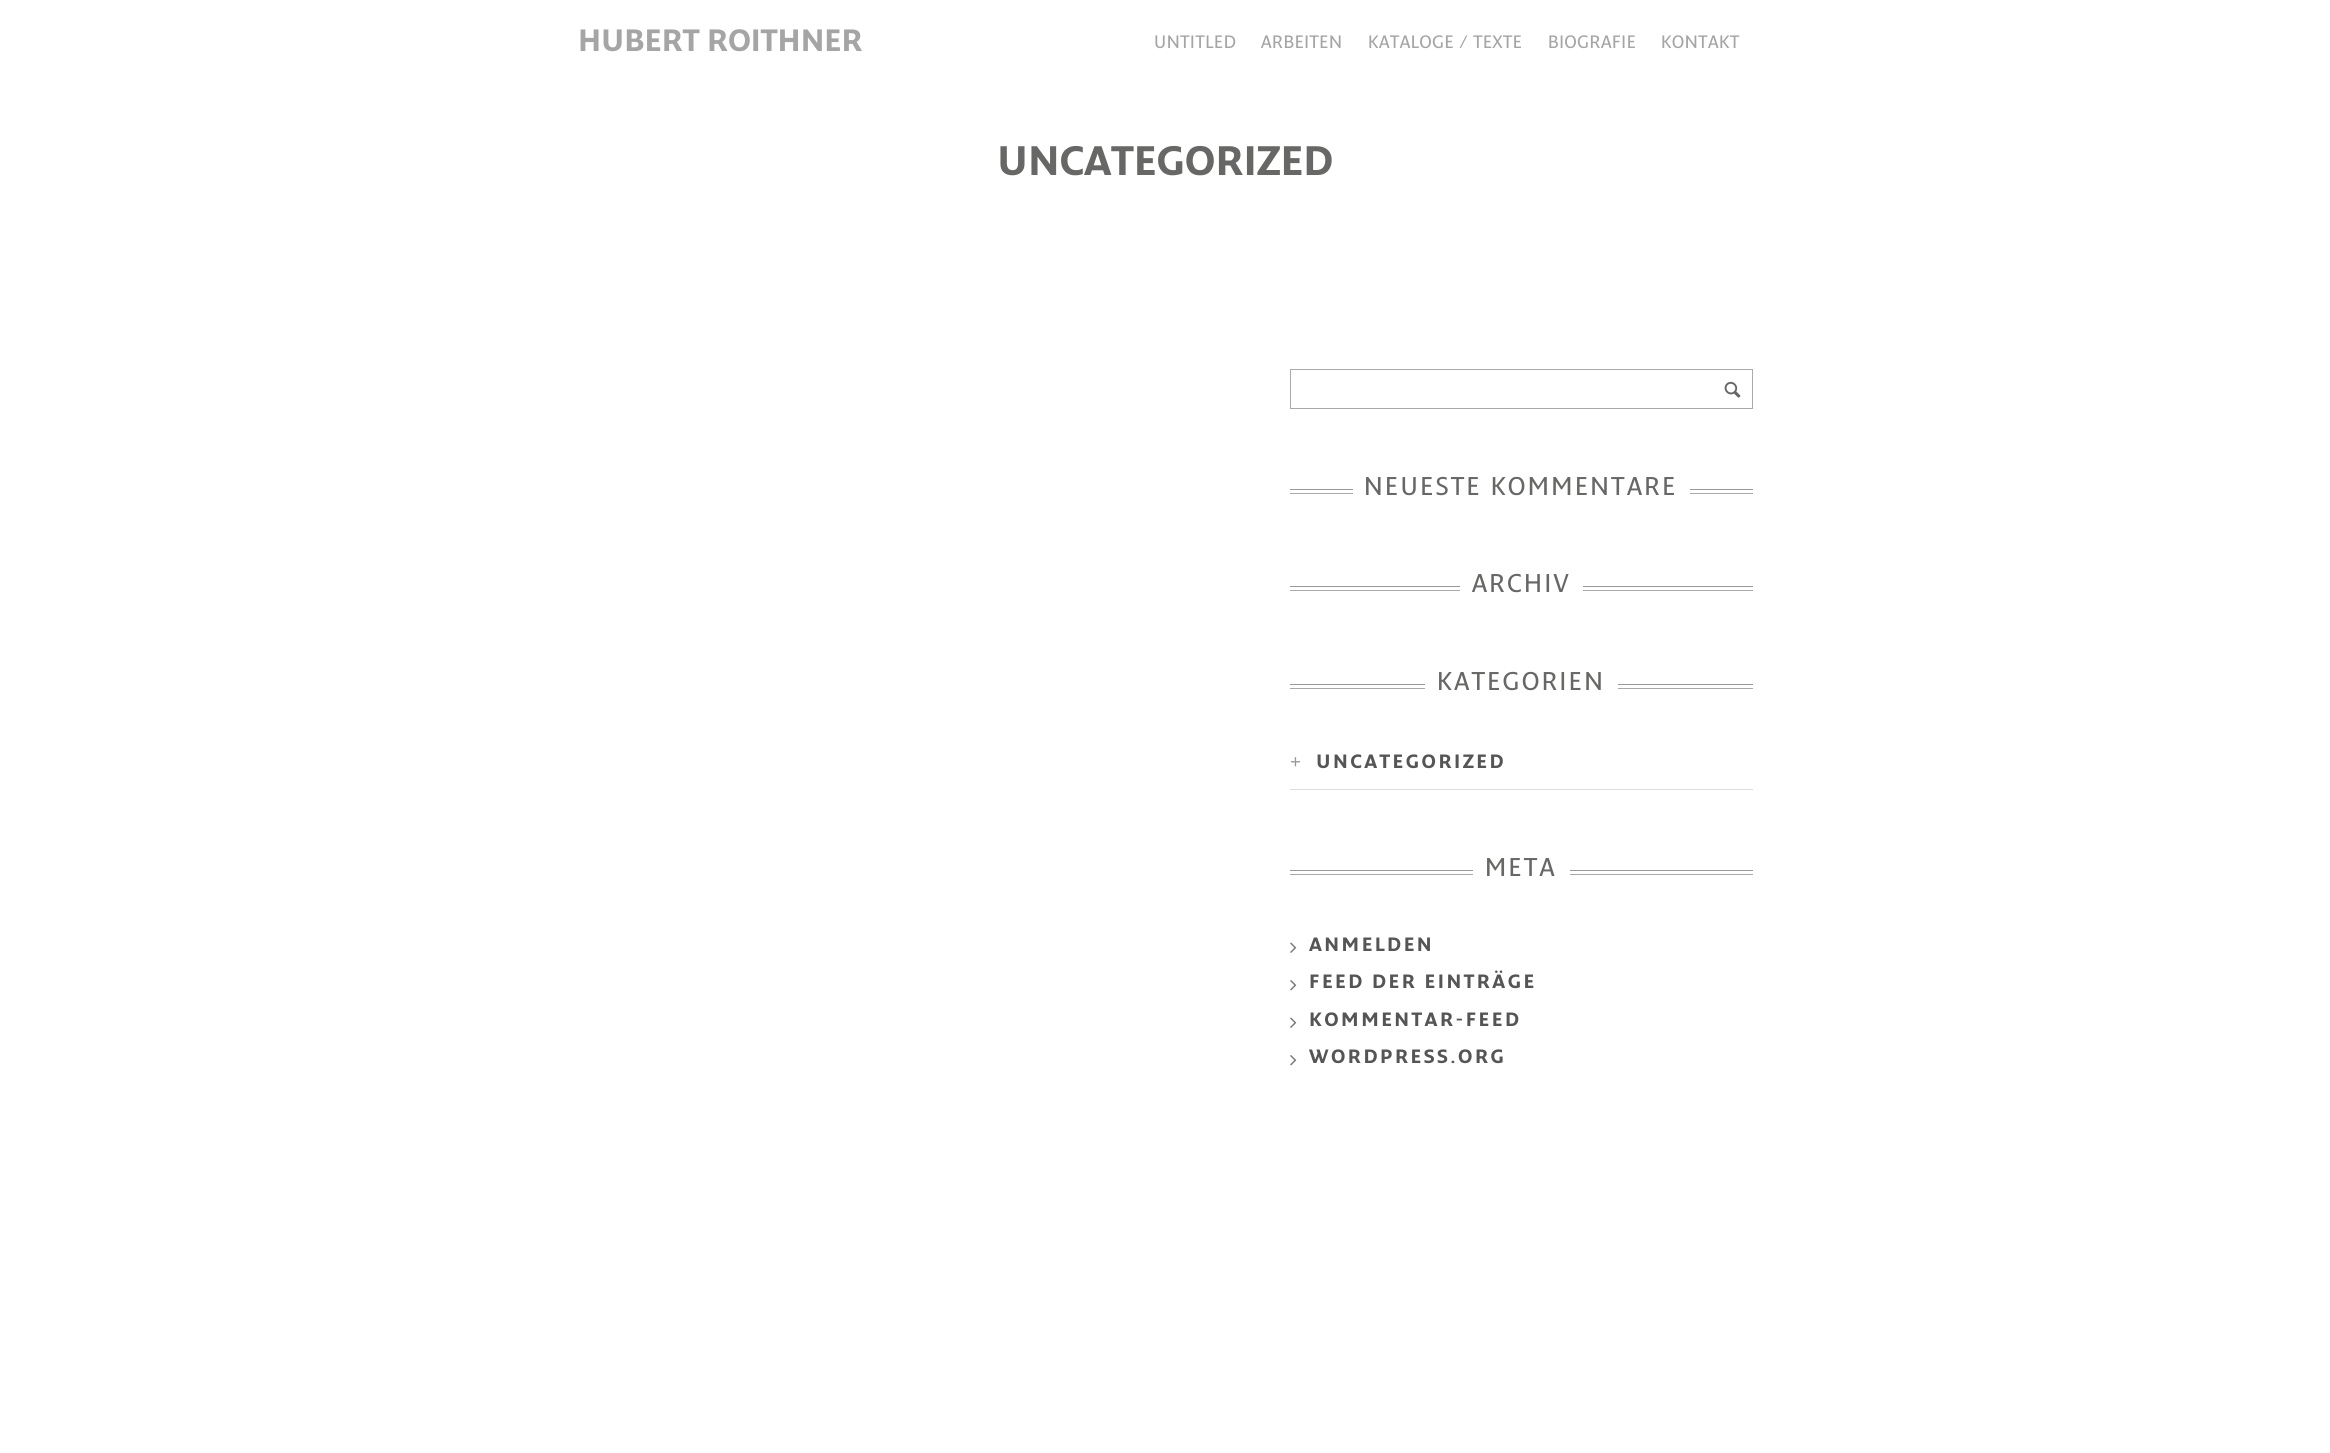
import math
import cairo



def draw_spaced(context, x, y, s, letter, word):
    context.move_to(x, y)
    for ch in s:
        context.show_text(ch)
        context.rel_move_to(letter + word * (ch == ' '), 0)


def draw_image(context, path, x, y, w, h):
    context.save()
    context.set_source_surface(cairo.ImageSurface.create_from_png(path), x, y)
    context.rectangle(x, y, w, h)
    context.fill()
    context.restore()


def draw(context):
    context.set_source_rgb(1, 1, 1)
    context.paint()
    context.rectangle(1290.5, 369.5, 462, 39)
    context.set_source_rgb(170 / 255, 170 / 255, 170 / 255)
    context.set_line_width(1)
    context.stroke()
    draw_image(context, "images/1.png", 1724, 381, 17, 17)
    context.set_source_rgb(153 / 255, 153 / 255, 153 / 255)
    context.rectangle(1290, 489, 63, 1)
    context.fill()
    context.set_source_rgb(170 / 255, 170 / 255, 170 / 255)
    context.rectangle(1290, 493, 63, 1)
    context.fill()
    context.set_source_rgb(153 / 255, 153 / 255, 153 / 255)
    context.rectangle(1690, 489, 63, 1)
    context.fill()
    context.set_source_rgb(170 / 255, 170 / 255, 170 / 255)
    context.rectangle(1690, 493, 63, 1)
    context.fill()
    context.set_source_rgb(153 / 255, 153 / 255, 153 / 255)
    context.rectangle(1290, 586, 170, 1)
    context.fill()
    context.set_source_rgb(170 / 255, 170 / 255, 170 / 255)
    context.rectangle(1290, 590, 170, 1)
    context.fill()
    context.set_source_rgb(153 / 255, 153 / 255, 153 / 255)
    context.rectangle(1583, 586, 170, 1)
    context.fill()
    context.set_source_rgb(170 / 255, 170 / 255, 170 / 255)
    context.rectangle(1583, 590, 170, 1)
    context.fill()
    context.set_source_rgb(153 / 255, 153 / 255, 153 / 255)
    context.rectangle(1290, 684, 135, 1)
    context.fill()
    context.set_source_rgb(170 / 255, 170 / 255, 170 / 255)
    context.rectangle(1290, 688, 135, 1)
    context.fill()
    context.set_source_rgb(153 / 255, 153 / 255, 153 / 255)
    context.rectangle(1618, 684, 135, 1)
    context.fill()
    context.set_source_rgb(170 / 255, 170 / 255, 170 / 255)
    context.rectangle(1618, 688, 135, 1)
    context.fill()
    context.set_source_rgb(221 / 255, 221 / 255, 221 / 255)
    context.rectangle(1290, 789, 463, 1)
    context.fill()
    context.set_source_rgb(153 / 255, 153 / 255, 153 / 255)
    context.rectangle(1290, 870, 183, 1)
    context.fill()
    context.set_source_rgb(170 / 255, 170 / 255, 170 / 255)
    context.rectangle(1290, 874, 183, 1)
    context.fill()
    context.set_source_rgb(153 / 255, 153 / 255, 153 / 255)
    context.rectangle(1570, 870, 183, 1)
    context.fill()
    context.set_source_rgb(170 / 255, 170 / 255, 170 / 255)
    context.rectangle(1570, 874, 183, 1)
    context.fill()
    draw_image(context, "images/2.png", 1290, 942, 7, 11)
    draw_image(context, "images/3.png", 1290, 980, 7, 11)
    draw_image(context, "images/2.png", 1290, 1017, 7, 11)
    draw_image(context, "images/3.png", 1290, 1055, 7, 11)
    context.select_font_face("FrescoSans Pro", cairo.FontSlant.NORMAL, cairo.FontWeight.BOLD)
    context.set_font_size(30)
    context.set_source_rgb(165 / 255, 165 / 255, 166 / 255)
    context.move_to(578, 51)
    context.show_text("HUBERT ROITHNER")
    context.select_font_face("FrescoSans Pro SemiBold")
    context.set_font_size(17.5)
    draw_spaced(context, 1154, 48, "UNTITLED", 0.6, 0)
    draw_spaced(context, 1261, 48, "ARBEITEN", 0.6, 0)
    draw_spaced(context, 1368, 48, "KATALOGE / TEXTE", 0.6, 0)
    draw_spaced(context, 1548, 48, "BIOGRAFIE", 0.6, 0)
    draw_spaced(context, 1661, 48, "KONTAKT", 0.6, 0)
    context.select_font_face("FrescoSans Pro", cairo.FontSlant.NORMAL, cairo.FontWeight.BOLD)
    context.set_font_size(40)
    context.set_source_rgb(103 / 255, 104 / 255, 102 / 255)
    context.move_to(997, 175)
    context.show_text("UNCATEGORIZED")
    context.select_font_face("FrescoSans Pro SemiBold")
    context.set_font_size(25)
    draw_spaced(context, 1364, 495, "NEUESTE KOMMENTARE", 2.5, 0)
    draw_spaced(context, 1472, 592, "ARCHIV", 2.5, 0)
    draw_spaced(context, 1437, 690, "KATEGORIEN", 2.5, 0)
    context.select_font_face("Liberation Sans")
    context.set_font_size(18.75)
    context.set_source_rgb(153 / 255, 153 / 255, 153 / 255)
    draw_spaced(context, 1290, 768, "+", 2.5, 0)
    context.select_font_face("FrescoSans Pro", cairo.FontSlant.NORMAL, cairo.FontWeight.BOLD)
    context.set_source_rgb(85 / 255, 85 / 255, 85 / 255)
    draw_spaced(context, 1316, 768, "UNCATEGORIZED", 2.5, 0)
    context.select_font_face("FrescoSans Pro SemiBold")
    context.set_font_size(25)
    context.set_source_rgb(103 / 255, 104 / 255, 102 / 255)
    draw_spaced(context, 1485, 876, "META", 2.5, 0)
    context.select_font_face("FrescoSans Pro", cairo.FontSlant.NORMAL, cairo.FontWeight.BOLD)
    context.set_font_size(18.75)
    context.set_source_rgb(85 / 255, 85 / 255, 85 / 255)
    draw_spaced(context, 1309, 951, "ANMELDEN", 2.5, 0)
    draw_spaced(context, 1309, 988, "FEED DER EINTRÄGE", 2.5, 0)
    draw_spaced(context, 1309, 1026, "KOMMENTAR-FEED", 2.5, 0)
    draw_spaced(context, 1309, 1063, "WORDPRESS.ORG", 2.5, 0)


surface = cairo.ImageSurface(cairo.Format.RGB24, 2330, 1453)
context = cairo.Context(surface)
options = cairo.FontOptions()
options.set_hint_metrics(cairo.HintMetrics.OFF)
options.set_hint_style(cairo.HintStyle.NONE)
context.set_font_options(options)
context.set_miter_limit(4)
draw(context)
surface.write_to_png("out.png")
